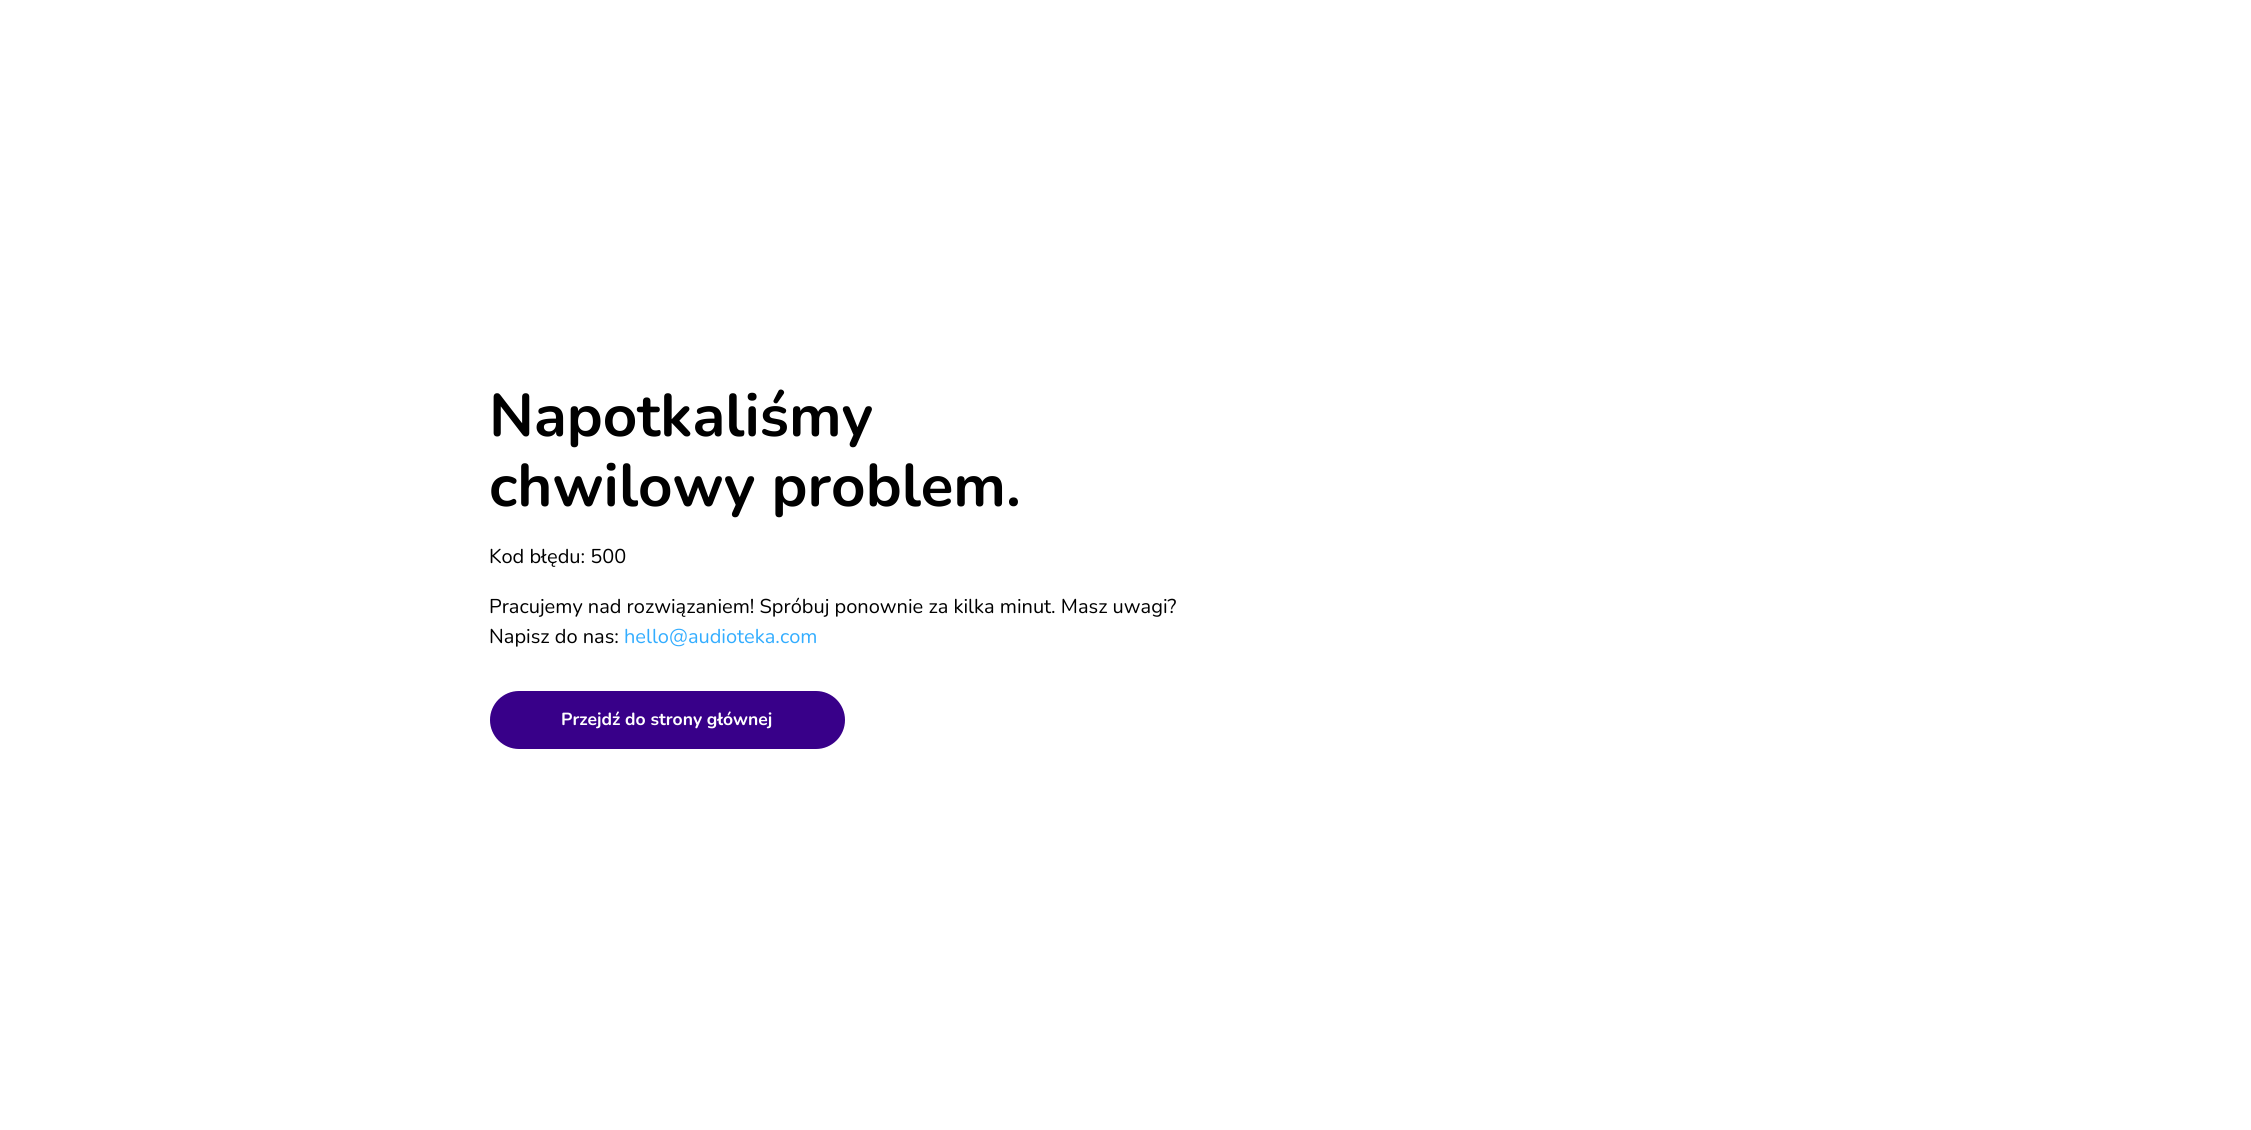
import math
import cairo



def rounded_rect(context, x, y, w, h, r):
    context.new_sub_path()
    for i, (u, v) in enumerate([(x + w - r, y + h - r), (x + r, y + h - r), (x + r, y + r), (x + w - r, y + r)]):
        context.arc(u, v, r, i * math.pi / 2, (i + 1) * math.pi / 2)
    context.close_path()


def draw(context):
    context.set_source_rgb(1, 1, 1)
    context.paint()
    context.set_source_rgb(56 / 255, 0, 137 / 255)
    rounded_rect(context, 490, 691, 355, 58, 29)
    context.fill()
    context.select_font_face("Nunito", cairo.FontSlant.NORMAL, cairo.FontWeight.BOLD)
    context.set_font_size(60)
    context.set_source_rgb(0, 0, 0)
    context.move_to(489, 436)
    context.show_text("Napotkaliśmy")
    context.move_to(489, 506)
    context.show_text("chwilowy problem.")
    context.select_font_face("Nunito")
    context.set_font_size(20)
    context.move_to(489, 563)
    context.show_text("Kod błędu: 500")
    context.move_to(489, 613)
    context.show_text("Pracujemy nad rozwiązaniem! Spróbuj ponownie za kilka minut. Masz uwagi?")
    context.move_to(489, 643)
    context.show_text("Napisz do nas:")
    context.set_source_rgb(51 / 255, 173 / 255, 1)
    context.move_to(624, 643)
    context.show_text("hello@audioteka.com")
    context.select_font_face("Nunito", cairo.FontSlant.NORMAL, cairo.FontWeight.BOLD)
    context.set_font_size(17.5)
    context.set_source_rgb(1, 1, 1)
    context.move_to(561, 725)
    context.show_text("Przejdź do strony głównej")


surface = cairo.ImageSurface(cairo.Format.RGB24, 2251, 1130)
context = cairo.Context(surface)
options = cairo.FontOptions()
options.set_hint_metrics(cairo.HintMetrics.OFF)
options.set_hint_style(cairo.HintStyle.NONE)
context.set_font_options(options)
context.set_miter_limit(4)
draw(context)
surface.write_to_png("out.png")
